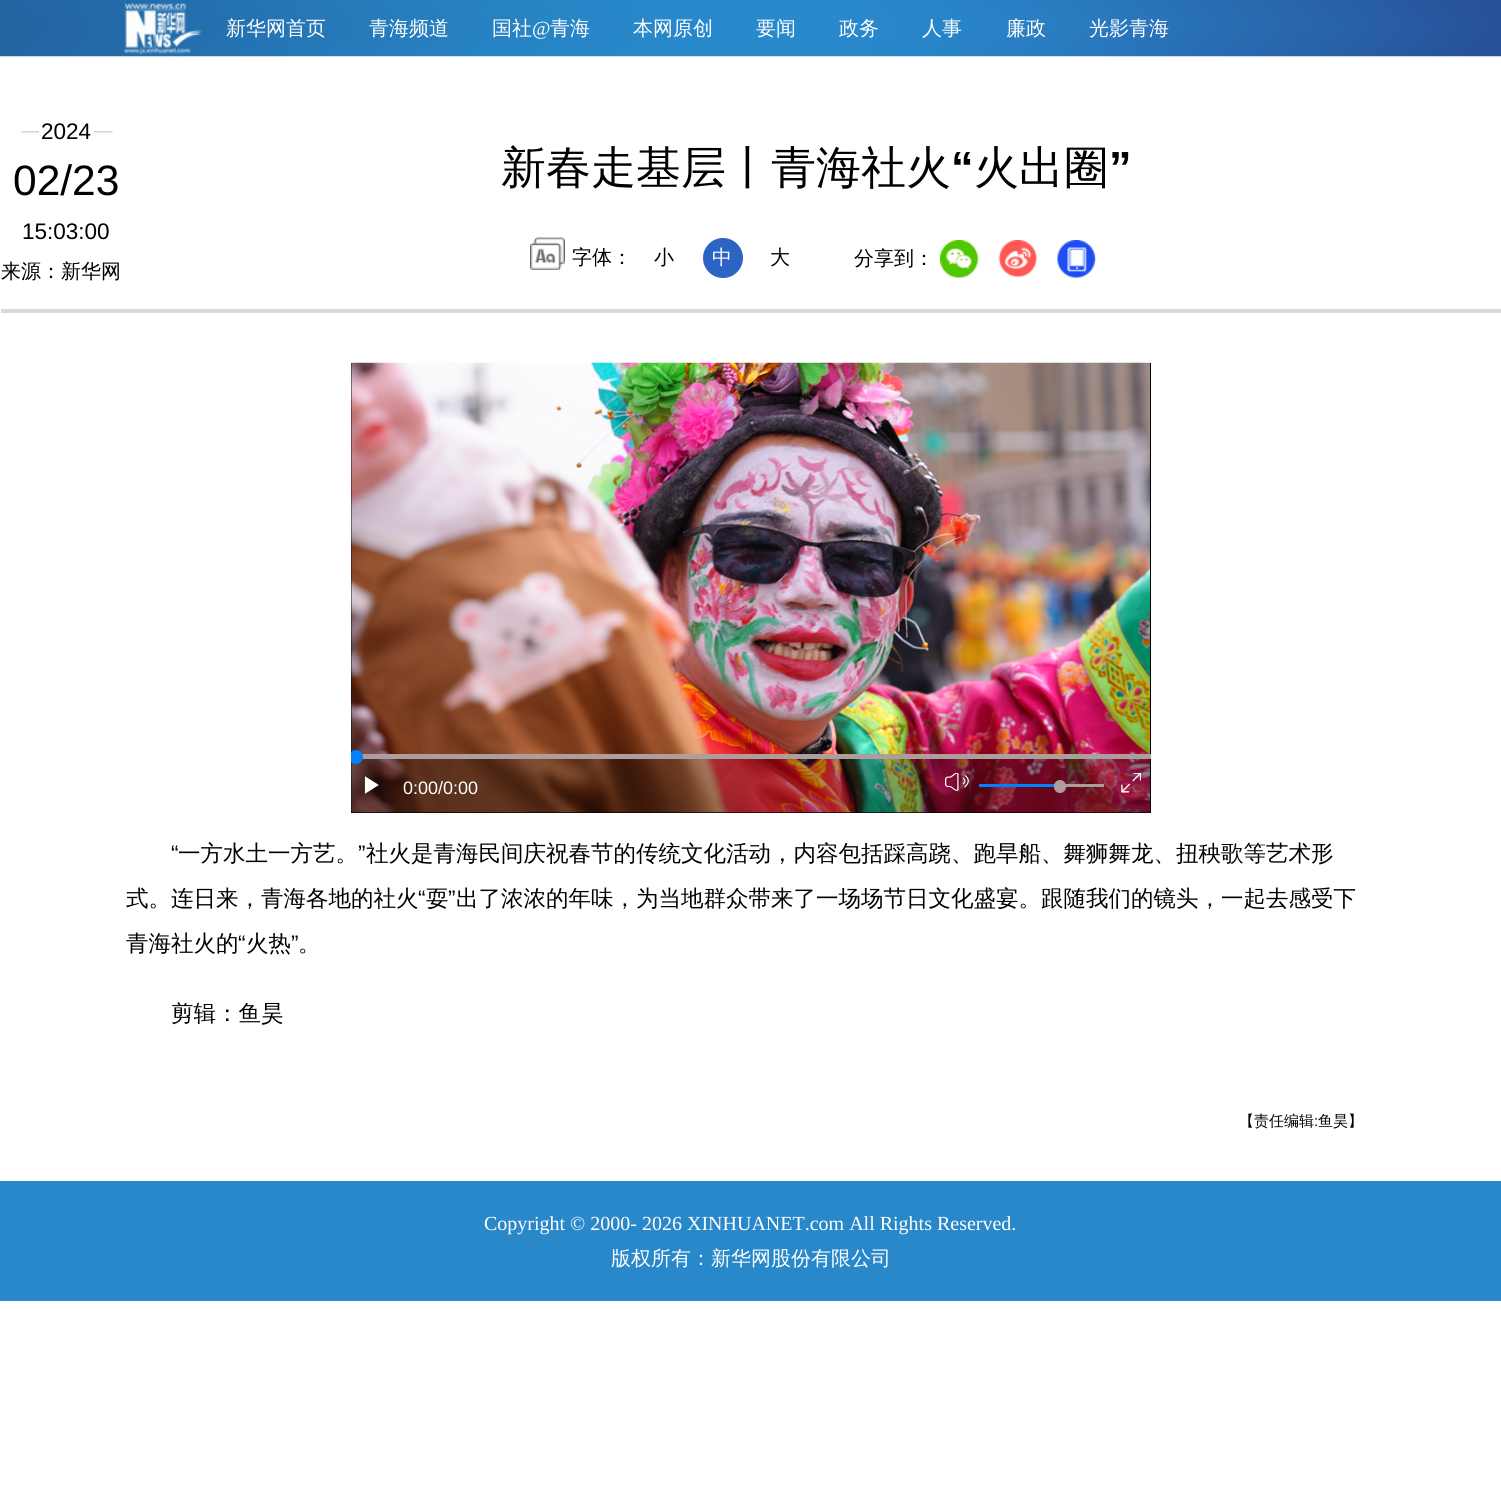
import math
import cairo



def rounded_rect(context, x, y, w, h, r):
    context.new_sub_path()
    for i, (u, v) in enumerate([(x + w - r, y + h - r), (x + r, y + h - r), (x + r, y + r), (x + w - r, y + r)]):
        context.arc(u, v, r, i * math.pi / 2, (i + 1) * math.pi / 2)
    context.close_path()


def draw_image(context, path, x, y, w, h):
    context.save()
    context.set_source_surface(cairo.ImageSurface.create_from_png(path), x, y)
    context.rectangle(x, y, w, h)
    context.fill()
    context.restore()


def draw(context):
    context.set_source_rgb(1, 1, 1)
    context.paint()
    draw_image(context, "images/1.png", 0, 0, 1501, 57)
    context.set_source_rgb(217 / 255, 217 / 255, 217 / 255)
    context.rectangle(1, 309, 1500, 4)
    context.fill()
    draw_image(context, "images/2.png", 21, 131, 92, 2)
    context.set_source_rgb(1, 1, 1)
    context.rectangle(39, 131, 55, 2)
    context.fill()
    draw_image(context, "images/3.png", 530, 237, 35, 33)
    context.set_source_rgb(44 / 255, 100 / 255, 195 / 255)
    context.arc(723, 258, 20, 0, 2 * math.pi)
    context.fill()
    draw_image(context, "images/4.png", 940, 240, 39, 38)
    draw_image(context, "images/5.png", 998, 240, 39, 38)
    draw_image(context, "images/6.png", 1057, 240, 39, 38)
    context.set_source_rgb(0, 0, 0)
    context.rectangle(351, 363, 800, 450)
    context.fill()
    draw_image(context, "images/7.png", 351, 362, 799, 451)
    context.set_source_rgba(16 / 255, 16 / 255, 16 / 255, 0.33)
    context.rectangle(351, 759, 800, 54)
    context.fill()
    context.set_source_rgb(173 / 255, 158 / 255, 158 / 255)
    context.rectangle(362, 754, 789, 5)
    context.fill()
    context.save()
    context.rectangle(351, 363, 800, 450)
    context.clip()
    context.set_source_rgb(0, 127 / 255, 1)
    context.arc(356, 757, 7, 0, 2 * math.pi)
    context.fill()
    context.restore()
    draw_image(context, "images/8.png", 364, 776, 15, 18)
    draw_image(context, "images/9.png", 945, 773, 24, 18)
    context.rectangle(1054, 784, 50, 3)
    context.fill()
    context.set_source_rgb(0, 127 / 255, 1)
    context.rectangle(979, 784, 75, 3)
    context.fill()
    context.set_source_rgb(173 / 255, 158 / 255, 158 / 255)
    rounded_rect(context, 1054, 780, 12, 13, 6)
    context.fill()
    draw_image(context, "images/10.png", 1121, 773, 20, 20)
    context.set_source_rgb(41 / 255, 136 / 255, 202 / 255)
    context.rectangle(0, 1181, 1501, 120)
    context.fill()
    context.select_font_face("WenQuanYi Zen Hei Medium")
    context.set_font_size(20)
    context.set_source_rgb(1, 1, 1)
    context.move_to(226, 35)
    context.show_text("新华网首页")
    context.move_to(369, 35)
    context.show_text("青海频道")
    context.move_to(492, 35)
    context.show_text("国社")
    context.select_font_face("Liberation Serif")
    context.move_to(532, 35)
    context.show_text("@")
    context.select_font_face("WenQuanYi Zen Hei Medium")
    context.move_to(550, 35)
    context.show_text("青海")
    context.move_to(633, 35)
    context.show_text("本网原创")
    context.move_to(756, 35)
    context.show_text("要闻")
    context.move_to(839, 35)
    context.show_text("政务")
    context.move_to(922, 35)
    context.show_text("人事")
    context.move_to(1006, 35)
    context.show_text("廉政")
    context.move_to(1089, 35)
    context.show_text("光影青海")
    context.select_font_face("Liberation Sans")
    context.set_font_size(22.5)
    context.set_source_rgb(0, 0, 0)
    context.move_to(41, 139)
    context.show_text("2024")
    context.set_font_size(42.5)
    context.move_to(13, 195)
    context.show_text("02/23")
    context.set_font_size(22.5)
    context.move_to(22, 239)
    context.show_text("15:03:00")
    context.select_font_face("WenQuanYi Zen Hei Medium")
    context.set_font_size(45)
    context.move_to(501, 183)
    context.show_text("新春走基层丨青海社火")
    context.select_font_face("Liberation Sans", cairo.FontSlant.NORMAL, cairo.FontWeight.BOLD)
    context.move_to(951, 183)
    context.show_text("“")
    context.select_font_face("WenQuanYi Zen Hei Medium")
    context.move_to(974, 183)
    context.show_text("火出圈")
    context.select_font_face("Liberation Sans", cairo.FontSlant.NORMAL, cairo.FontWeight.BOLD)
    context.move_to(1109, 183)
    context.show_text("”")
    context.select_font_face("WenQuanYi Zen Hei Medium")
    context.set_font_size(20)
    context.move_to(572, 264)
    context.show_text("字体：")
    context.move_to(654, 264)
    context.show_text("小")
    context.set_source_rgb(1, 1, 1)
    context.move_to(712, 264)
    context.show_text("中")
    context.set_source_rgb(0, 0, 0)
    context.move_to(770, 264)
    context.show_text("大")
    context.move_to(854, 265)
    context.show_text("分享到：")
    context.move_to(1, 278)
    context.show_text("来源：新华网")
    context.select_font_face("Liberation Sans")
    context.set_font_size(18)
    context.set_source_rgb(1, 1, 1)
    context.move_to(403, 794)
    context.show_text("0:00/0:00")
    context.set_font_size(22.5)
    context.set_source_rgb(0, 0, 0)
    context.move_to(171, 861)
    context.show_text("“")
    context.select_font_face("WenQuanYi Zen Hei Medium")
    context.move_to(178, 861)
    context.show_text("一方水土一方艺。")
    context.select_font_face("Liberation Sans")
    context.move_to(358, 861)
    context.show_text("”")
    context.select_font_face("WenQuanYi Zen Hei Medium")
    context.move_to(366, 861)
    context.show_text("社火是青海民间庆祝春节的传统文化活动，内容包括踩高跷、跑旱船、舞狮舞龙、扭秧歌等艺术形")
    context.move_to(126, 906)
    context.show_text("式。连日来，青海各地的社火")
    context.select_font_face("Liberation Sans")
    context.move_to(418, 906)
    context.show_text("“")
    context.select_font_face("WenQuanYi Zen Hei Medium")
    context.move_to(426, 906)
    context.show_text("耍")
    context.select_font_face("Liberation Sans")
    context.move_to(448, 906)
    context.show_text("”")
    context.select_font_face("WenQuanYi Zen Hei Medium")
    context.move_to(456, 906)
    context.show_text("出了浓浓的年味，为当地群众带来了一场场节日文化盛宴。跟随我们的镜头，一起去感受下")
    context.move_to(126, 951)
    context.show_text("青海社火的")
    context.select_font_face("Liberation Sans")
    context.move_to(238, 951)
    context.show_text("“")
    context.select_font_face("WenQuanYi Zen Hei Medium")
    context.move_to(246, 951)
    context.show_text("火热")
    context.select_font_face("Liberation Sans")
    context.move_to(291, 951)
    context.show_text("”")
    context.select_font_face("WenQuanYi Zen Hei Medium")
    context.move_to(298, 951)
    context.show_text("。")
    context.move_to(171, 1021)
    context.show_text("剪辑：鱼昊")
    context.set_font_size(15)
    context.move_to(1239, 1126)
    context.show_text("【责任编辑")
    context.select_font_face("Liberation Sans")
    context.move_to(1314, 1126)
    context.show_text(":")
    context.select_font_face("WenQuanYi Zen Hei Medium")
    context.move_to(1318, 1126)
    context.show_text("鱼昊】")
    context.select_font_face("Liberation Serif")
    context.set_font_size(20)
    context.set_source_rgb(1, 1, 1)
    context.move_to(484, 1230)
    context.show_text("Copyright © 2000- 2026 XINHUANET.com All Rights Reserved.")
    context.select_font_face("WenQuanYi Zen Hei Medium")
    context.move_to(611, 1265)
    context.show_text("版权所有：新华网股份有限公司")


surface = cairo.ImageSurface(cairo.Format.RGB24, 1501, 1487)
context = cairo.Context(surface)
options = cairo.FontOptions()
options.set_hint_metrics(cairo.HintMetrics.OFF)
options.set_hint_style(cairo.HintStyle.NONE)
context.set_font_options(options)
context.set_miter_limit(4)
draw(context)
surface.write_to_png("out.png")
